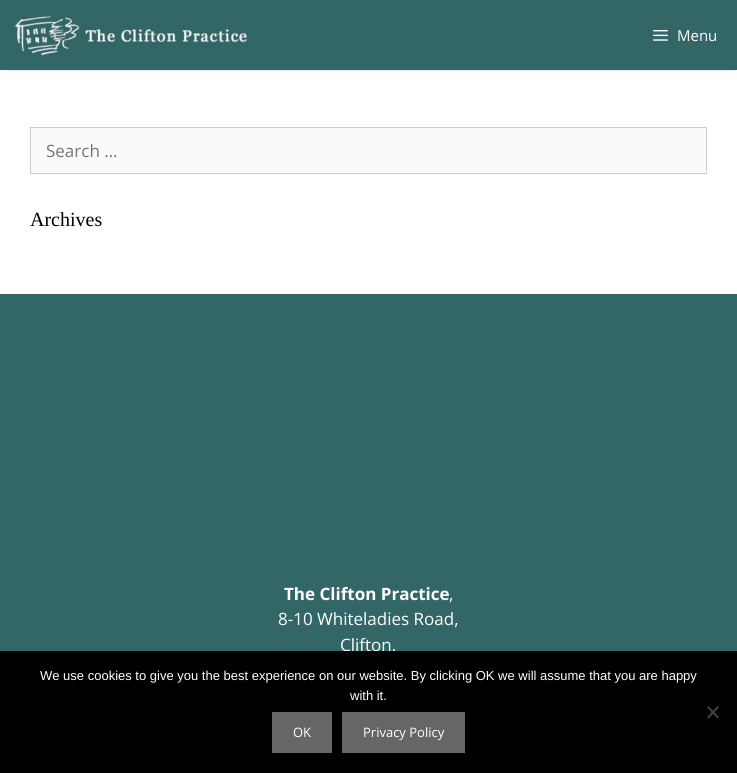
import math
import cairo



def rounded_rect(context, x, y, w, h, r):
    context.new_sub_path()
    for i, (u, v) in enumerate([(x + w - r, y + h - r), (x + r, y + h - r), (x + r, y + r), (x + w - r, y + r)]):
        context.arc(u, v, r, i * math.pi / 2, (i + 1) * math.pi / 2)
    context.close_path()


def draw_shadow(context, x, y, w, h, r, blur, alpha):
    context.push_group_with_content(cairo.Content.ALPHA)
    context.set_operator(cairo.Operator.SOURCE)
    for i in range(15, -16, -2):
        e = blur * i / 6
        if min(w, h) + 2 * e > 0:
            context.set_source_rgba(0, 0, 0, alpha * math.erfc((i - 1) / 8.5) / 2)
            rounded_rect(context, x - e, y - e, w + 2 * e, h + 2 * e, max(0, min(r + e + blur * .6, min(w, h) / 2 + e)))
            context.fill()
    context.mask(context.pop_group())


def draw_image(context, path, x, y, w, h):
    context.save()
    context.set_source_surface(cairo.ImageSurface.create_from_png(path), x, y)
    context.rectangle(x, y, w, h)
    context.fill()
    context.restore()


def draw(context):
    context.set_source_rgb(1, 1, 1)
    context.paint()
    context.set_source_rgb(0, 0, 0)
    draw_shadow(context, 2, 4, 733, 66, 0, 1, 0.2)
    context.set_source_rgb(51 / 255, 102 / 255, 102 / 255)
    context.rectangle(0, 0, 737, 70)
    context.fill()
    draw_image(context, "images/1.png", 15, 15, 232, 41)
    draw_image(context, "images/2.png", 653, 30, 15, 11)
    context.set_source_rgb(250 / 255, 250 / 255, 250 / 255)
    context.rectangle(30.5, 127.5, 676, 46)
    context.fill_preserve()
    context.set_source_rgb(204 / 255, 204 / 255, 204 / 255)
    context.set_line_width(1)
    context.stroke()
    context.set_source_rgb(51 / 255, 102 / 255, 102 / 255)
    context.rectangle(0, 294, 737, 357)
    context.fill()
    context.select_font_face("Open Sans")
    context.set_font_size(15)
    context.set_source_rgb(1, 1, 1)
    context.move_to(677, 41)
    context.show_text("Menu")
    context.set_font_size(17)
    context.set_source_rgb(117 / 255, 117 / 255, 117 / 255)
    context.move_to(46, 157)
    context.show_text("Search …")
    context.select_font_face("Liberation Serif")
    context.set_font_size(20)
    context.set_source_rgb(0, 0, 0)
    context.move_to(30, 226)
    context.show_text("Archives")
    context.select_font_face("Open Sans", cairo.FontSlant.NORMAL, cairo.FontWeight.BOLD)
    context.set_font_size(17)
    context.set_source_rgb(1, 1, 1)
    context.move_to(284, 600)
    context.show_text("The Clifton Practice")
    context.select_font_face("Open Sans")
    context.move_to(449, 600)
    context.show_text(",")
    context.move_to(278, 625)
    context.show_text("8-10 Whiteladies Road,")
    context.move_to(340, 651)
    context.show_text("Clifton,")
    context.set_source_rgb(0, 0, 0)
    context.rectangle(0, 651, 737, 122)
    context.fill()
    context.select_font_face("Liberation Sans")
    context.set_font_size(13)
    context.set_source_rgb(1, 1, 1)
    context.move_to(40, 680)
    context.show_text("We use cookies to give you the best experience on our website. By clicking OK we will assume that you are happy")
    context.move_to(350, 700)
    context.show_text("with it.")
    context.set_source_rgb(64 / 255, 64 / 255, 64 / 255)
    context.new_path()
    context.move_to(717.5, 706)
    context.line_to(719, 707.5)
    context.line_to(708.5, 718.5)
    context.line_to(707, 717)
    context.close_path()
    context.fill()
    context.new_path()
    context.move_to(707, 707.5)
    context.line_to(708.5, 706)
    context.line_to(719, 717)
    context.line_to(717.5, 718.5)
    context.close_path()
    context.fill()
    context.set_source_rgb(102 / 255, 102 / 255, 102 / 255)
    context.rectangle(272, 712, 60, 41)
    context.fill()
    context.select_font_face("Open Sans")
    context.set_source_rgb(1, 1, 1)
    context.move_to(293, 737)
    context.show_text("OK")
    context.set_source_rgb(102 / 255, 102 / 255, 102 / 255)
    context.rectangle(342, 712, 123, 41)
    context.fill()
    context.set_source_rgb(1, 1, 1)
    context.move_to(363, 737)
    context.show_text("Privacy Policy")


surface = cairo.ImageSurface(cairo.Format.RGB24, 737, 773)
context = cairo.Context(surface)
options = cairo.FontOptions()
options.set_hint_metrics(cairo.HintMetrics.OFF)
options.set_hint_style(cairo.HintStyle.NONE)
context.set_font_options(options)
context.set_miter_limit(4)
draw(context)
surface.write_to_png("out.png")
